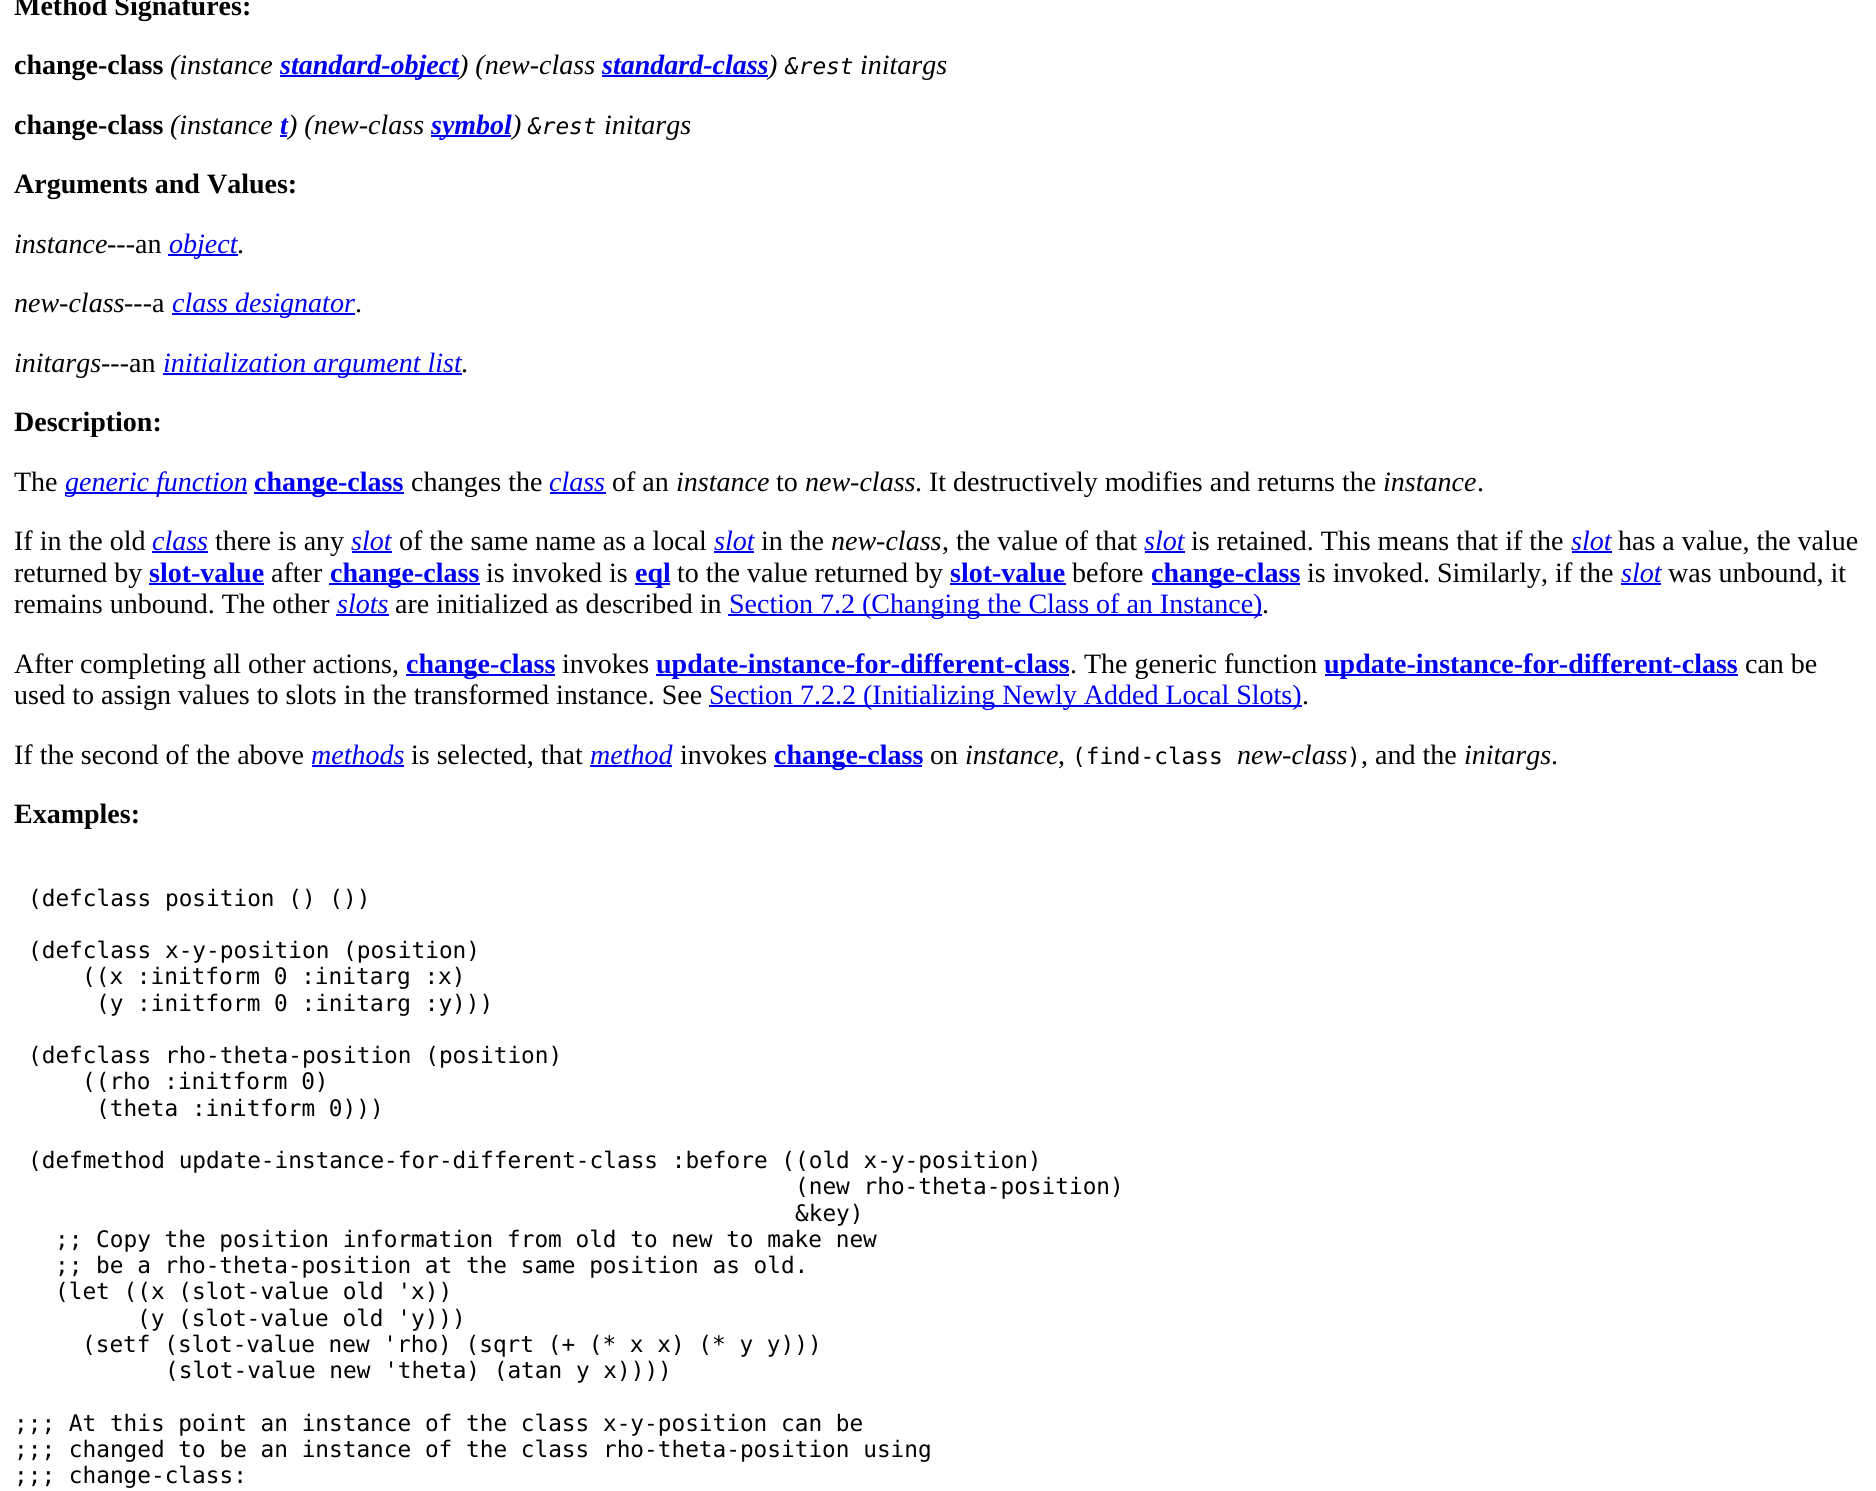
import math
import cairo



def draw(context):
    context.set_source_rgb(1, 1, 1)
    context.paint()
    context.set_source_rgb(0, 0, 238 / 255)
    context.rectangle(280, 75, 179, 2)
    context.fill()
    context.rectangle(602, 75, 166, 2)
    context.fill()
    context.rectangle(280, 135, 7, 2)
    context.fill()
    context.rectangle(431, 135, 80, 2)
    context.fill()
    context.rectangle(168, 254, 70, 2)
    context.fill()
    context.rectangle(172, 313, 183, 2)
    context.fill()
    context.rectangle(163, 373, 299, 2)
    context.fill()
    context.rectangle(65, 492, 182, 2)
    context.fill()
    context.rectangle(254, 492, 150, 2)
    context.fill()
    context.rectangle(550, 492, 56, 2)
    context.fill()
    context.rectangle(152, 551, 56, 2)
    context.fill()
    context.rectangle(352, 551, 40, 2)
    context.fill()
    context.rectangle(714, 551, 40, 2)
    context.fill()
    context.rectangle(1145, 551, 40, 2)
    context.fill()
    context.rectangle(1572, 551, 40, 2)
    context.fill()
    context.rectangle(149, 583, 115, 2)
    context.fill()
    context.rectangle(329, 583, 151, 2)
    context.fill()
    context.rectangle(635, 583, 35, 2)
    context.fill()
    context.rectangle(950, 583, 116, 2)
    context.fill()
    context.rectangle(1152, 583, 148, 2)
    context.fill()
    context.rectangle(1621, 583, 40, 2)
    context.fill()
    context.rectangle(336, 614, 53, 2)
    context.fill()
    context.rectangle(728, 614, 534, 2)
    context.fill()
    context.rectangle(406, 674, 149, 2)
    context.fill()
    context.rectangle(656, 674, 413, 2)
    context.fill()
    context.rectangle(1325, 674, 413, 2)
    context.fill()
    context.rectangle(709, 705, 593, 2)
    context.fill()
    context.rectangle(312, 765, 92, 2)
    context.fill()
    context.rectangle(590, 765, 82, 2)
    context.fill()
    context.rectangle(774, 765, 148, 2)
    context.fill()
    context.select_font_face("Liberation Serif", cairo.FontSlant.NORMAL, cairo.FontWeight.BOLD)
    context.set_font_size(28)
    context.set_source_rgb(0, 0, 0)
    context.move_to(14, 15)
    context.show_text("Method Signatures:")
    context.move_to(14, 74)
    context.show_text("change-class")
    context.select_font_face("Liberation Serif", cairo.FontSlant.ITALIC)
    context.move_to(170, 74)
    context.show_text("(instance")
    context.select_font_face("Liberation Serif", cairo.FontSlant.ITALIC, cairo.FontWeight.BOLD)
    context.set_source_rgb(0, 0, 238 / 255)
    context.move_to(280, 74)
    context.show_text("standard-object")
    context.select_font_face("Liberation Serif", cairo.FontSlant.ITALIC)
    context.set_source_rgb(0, 0, 0)
    context.move_to(459, 74)
    context.show_text(") (new-class")
    context.select_font_face("Liberation Serif", cairo.FontSlant.ITALIC, cairo.FontWeight.BOLD)
    context.set_source_rgb(0, 0, 238 / 255)
    context.move_to(602, 74)
    context.show_text("standard-class")
    context.select_font_face("Liberation Serif", cairo.FontSlant.ITALIC)
    context.set_source_rgb(0, 0, 0)
    context.move_to(768, 74)
    context.show_text(")")
    context.select_font_face("DejaVu Sans Mono", cairo.FontSlant.ITALIC)
    context.set_font_size(22.75)
    context.move_to(785, 74)
    context.show_text("&rest")
    context.select_font_face("Liberation Serif", cairo.FontSlant.ITALIC)
    context.set_font_size(28)
    context.move_to(860, 74)
    context.show_text("initargs")
    context.select_font_face("Liberation Serif", cairo.FontSlant.NORMAL, cairo.FontWeight.BOLD)
    context.move_to(14, 134)
    context.show_text("change-class")
    context.select_font_face("Liberation Serif", cairo.FontSlant.ITALIC)
    context.move_to(170, 134)
    context.show_text("(instance")
    context.select_font_face("Liberation Serif", cairo.FontSlant.ITALIC, cairo.FontWeight.BOLD)
    context.set_source_rgb(0, 0, 238 / 255)
    context.move_to(280, 134)
    context.show_text("t")
    context.select_font_face("Liberation Serif", cairo.FontSlant.ITALIC)
    context.set_source_rgb(0, 0, 0)
    context.move_to(288, 134)
    context.show_text(") (new-class")
    context.select_font_face("Liberation Serif", cairo.FontSlant.ITALIC, cairo.FontWeight.BOLD)
    context.set_source_rgb(0, 0, 238 / 255)
    context.move_to(431, 134)
    context.show_text("symbol")
    context.select_font_face("Liberation Serif", cairo.FontSlant.ITALIC)
    context.set_source_rgb(0, 0, 0)
    context.move_to(512, 134)
    context.show_text(")")
    context.select_font_face("DejaVu Sans Mono", cairo.FontSlant.ITALIC)
    context.set_font_size(22.75)
    context.move_to(528, 134)
    context.show_text("&rest")
    context.select_font_face("Liberation Serif", cairo.FontSlant.ITALIC)
    context.set_font_size(28)
    context.move_to(604, 134)
    context.show_text("initargs")
    context.select_font_face("Liberation Serif", cairo.FontSlant.NORMAL, cairo.FontWeight.BOLD)
    context.move_to(14, 193)
    context.show_text("Arguments and Values:")
    context.select_font_face("Liberation Serif", cairo.FontSlant.ITALIC)
    context.move_to(14, 253)
    context.show_text("instance")
    context.select_font_face("Liberation Serif")
    context.move_to(107, 253)
    context.show_text("---an")
    context.select_font_face("Liberation Serif", cairo.FontSlant.ITALIC)
    context.set_source_rgb(0, 0, 238 / 255)
    context.move_to(169, 253)
    context.show_text("object")
    context.select_font_face("Liberation Serif")
    context.set_source_rgb(0, 0, 0)
    context.move_to(237, 253)
    context.show_text(".")
    context.select_font_face("Liberation Serif", cairo.FontSlant.ITALIC)
    context.move_to(14, 312)
    context.show_text("new-class")
    context.select_font_face("Liberation Serif")
    context.move_to(124, 312)
    context.show_text("---a")
    context.select_font_face("Liberation Serif", cairo.FontSlant.ITALIC)
    context.set_source_rgb(0, 0, 238 / 255)
    context.move_to(172, 312)
    context.show_text("class designator")
    context.select_font_face("Liberation Serif")
    context.set_source_rgb(0, 0, 0)
    context.move_to(355, 312)
    context.show_text(".")
    context.select_font_face("Liberation Serif", cairo.FontSlant.ITALIC)
    context.move_to(14, 372)
    context.show_text("initargs")
    context.select_font_face("Liberation Serif")
    context.move_to(101, 372)
    context.show_text("---an")
    context.select_font_face("Liberation Serif", cairo.FontSlant.ITALIC)
    context.set_source_rgb(0, 0, 238 / 255)
    context.move_to(163, 372)
    context.show_text("initialization argument list")
    context.select_font_face("Liberation Serif")
    context.set_source_rgb(0, 0, 0)
    context.move_to(461, 372)
    context.show_text(".")
    context.select_font_face("Liberation Serif", cairo.FontSlant.NORMAL, cairo.FontWeight.BOLD)
    context.move_to(14, 431)
    context.show_text("Description:")
    context.select_font_face("Liberation Serif")
    context.move_to(14, 491)
    context.show_text("The")
    context.select_font_face("Liberation Serif", cairo.FontSlant.ITALIC)
    context.set_source_rgb(0, 0, 238 / 255)
    context.move_to(65, 491)
    context.show_text("generic function")
    context.select_font_face("Liberation Serif", cairo.FontSlant.NORMAL, cairo.FontWeight.BOLD)
    context.move_to(254, 491)
    context.show_text("change-class")
    context.select_font_face("Liberation Serif")
    context.set_source_rgb(0, 0, 0)
    context.move_to(411, 491)
    context.show_text("changes the")
    context.select_font_face("Liberation Serif", cairo.FontSlant.ITALIC)
    context.set_source_rgb(0, 0, 238 / 255)
    context.move_to(549, 491)
    context.show_text("class")
    context.select_font_face("Liberation Serif")
    context.set_source_rgb(0, 0, 0)
    context.move_to(612, 491)
    context.show_text("of an")
    context.select_font_face("Liberation Serif", cairo.FontSlant.ITALIC)
    context.move_to(676, 491)
    context.show_text("instance")
    context.select_font_face("Liberation Serif")
    context.move_to(776, 491)
    context.show_text("to")
    context.select_font_face("Liberation Serif", cairo.FontSlant.ITALIC)
    context.move_to(805, 491)
    context.show_text("new-class")
    context.select_font_face("Liberation Serif")
    context.move_to(915, 491)
    context.show_text(". It destructively modifies and returns the")
    context.select_font_face("Liberation Serif", cairo.FontSlant.ITALIC)
    context.move_to(1383, 491)
    context.show_text("instance")
    context.select_font_face("Liberation Serif")
    context.move_to(1477, 491)
    context.show_text(".")
    context.move_to(14, 550)
    context.show_text("If in the old")
    context.select_font_face("Liberation Serif", cairo.FontSlant.ITALIC)
    context.set_source_rgb(0, 0, 238 / 255)
    context.move_to(152, 550)
    context.show_text("class")
    context.select_font_face("Liberation Serif")
    context.set_source_rgb(0, 0, 0)
    context.move_to(215, 550)
    context.show_text("there is any")
    context.select_font_face("Liberation Serif", cairo.FontSlant.ITALIC)
    context.set_source_rgb(0, 0, 238 / 255)
    context.move_to(351, 550)
    context.show_text("slot")
    context.select_font_face("Liberation Serif")
    context.set_source_rgb(0, 0, 0)
    context.move_to(399, 550)
    context.show_text("of the same name as a local")
    context.select_font_face("Liberation Serif", cairo.FontSlant.ITALIC)
    context.set_source_rgb(0, 0, 238 / 255)
    context.move_to(714, 550)
    context.show_text("slot")
    context.select_font_face("Liberation Serif")
    context.set_source_rgb(0, 0, 0)
    context.move_to(761, 550)
    context.show_text("in the")
    context.select_font_face("Liberation Serif", cairo.FontSlant.ITALIC)
    context.move_to(831, 550)
    context.show_text("new-class")
    context.select_font_face("Liberation Serif")
    context.move_to(942, 550)
    context.show_text(", the value of that")
    context.select_font_face("Liberation Serif", cairo.FontSlant.ITALIC)
    context.set_source_rgb(0, 0, 238 / 255)
    context.move_to(1144, 550)
    context.show_text("slot")
    context.select_font_face("Liberation Serif")
    context.set_source_rgb(0, 0, 0)
    context.move_to(1191, 550)
    context.show_text("is retained. This means that if the")
    context.select_font_face("Liberation Serif", cairo.FontSlant.ITALIC)
    context.set_source_rgb(0, 0, 238 / 255)
    context.move_to(1571, 550)
    context.show_text("slot")
    context.select_font_face("Liberation Serif")
    context.set_source_rgb(0, 0, 0)
    context.move_to(1618, 550)
    context.show_text("has a value, the value")
    context.move_to(14, 582)
    context.show_text("returned by")
    context.select_font_face("Liberation Serif", cairo.FontSlant.NORMAL, cairo.FontWeight.BOLD)
    context.set_source_rgb(0, 0, 238 / 255)
    context.move_to(149, 582)
    context.show_text("slot-value")
    context.select_font_face("Liberation Serif")
    context.set_source_rgb(0, 0, 0)
    context.move_to(271, 582)
    context.show_text("after")
    context.select_font_face("Liberation Serif", cairo.FontSlant.NORMAL, cairo.FontWeight.BOLD)
    context.set_source_rgb(0, 0, 238 / 255)
    context.move_to(330, 582)
    context.show_text("change-class")
    context.select_font_face("Liberation Serif")
    context.set_source_rgb(0, 0, 0)
    context.move_to(486, 582)
    context.show_text("is invoked is")
    context.select_font_face("Liberation Serif", cairo.FontSlant.NORMAL, cairo.FontWeight.BOLD)
    context.set_source_rgb(0, 0, 238 / 255)
    context.move_to(635, 582)
    context.show_text("eql")
    context.select_font_face("Liberation Serif")
    context.set_source_rgb(0, 0, 0)
    context.move_to(677, 582)
    context.show_text("to the value returned by")
    context.select_font_face("Liberation Serif", cairo.FontSlant.NORMAL, cairo.FontWeight.BOLD)
    context.set_source_rgb(0, 0, 238 / 255)
    context.move_to(950, 582)
    context.show_text("slot-value")
    context.select_font_face("Liberation Serif")
    context.set_source_rgb(0, 0, 0)
    context.move_to(1072, 582)
    context.show_text("before")
    context.select_font_face("Liberation Serif", cairo.FontSlant.NORMAL, cairo.FontWeight.BOLD)
    context.set_source_rgb(0, 0, 238 / 255)
    context.move_to(1151, 582)
    context.show_text("change-class")
    context.select_font_face("Liberation Serif")
    context.set_source_rgb(0, 0, 0)
    context.move_to(1307, 582)
    context.show_text("is invoked. Similarly, if the")
    context.select_font_face("Liberation Serif", cairo.FontSlant.ITALIC)
    context.set_source_rgb(0, 0, 238 / 255)
    context.move_to(1621, 582)
    context.show_text("slot")
    context.select_font_face("Liberation Serif")
    context.set_source_rgb(0, 0, 0)
    context.move_to(1668, 582)
    context.show_text("was unbound, it")
    context.move_to(14, 613)
    context.show_text("remains unbound. The other")
    context.select_font_face("Liberation Serif", cairo.FontSlant.ITALIC)
    context.set_source_rgb(0, 0, 238 / 255)
    context.move_to(337, 613)
    context.show_text("slots")
    context.select_font_face("Liberation Serif")
    context.set_source_rgb(0, 0, 0)
    context.move_to(395, 613)
    context.show_text("are initialized as described in")
    context.set_source_rgb(0, 0, 238 / 255)
    context.move_to(729, 613)
    context.show_text("Section 7.2 (Changing the Class of an Instance)")
    context.set_source_rgb(0, 0, 0)
    context.move_to(1262, 613)
    context.show_text(".")
    context.move_to(14, 673)
    context.show_text("After completing all other actions,")
    context.select_font_face("Liberation Serif", cairo.FontSlant.NORMAL, cairo.FontWeight.BOLD)
    context.set_source_rgb(0, 0, 238 / 255)
    context.move_to(406, 673)
    context.show_text("change-class")
    context.select_font_face("Liberation Serif")
    context.set_source_rgb(0, 0, 0)
    context.move_to(562, 673)
    context.show_text("invokes")
    context.select_font_face("Liberation Serif", cairo.FontSlant.NORMAL, cairo.FontWeight.BOLD)
    context.set_source_rgb(0, 0, 238 / 255)
    context.move_to(656, 673)
    context.show_text("update-instance-for-different-class")
    context.select_font_face("Liberation Serif")
    context.set_source_rgb(0, 0, 0)
    context.move_to(1070, 673)
    context.show_text(". The generic function")
    context.select_font_face("Liberation Serif", cairo.FontSlant.NORMAL, cairo.FontWeight.BOLD)
    context.set_source_rgb(0, 0, 238 / 255)
    context.move_to(1324, 673)
    context.show_text("update-instance-for-different-class")
    context.select_font_face("Liberation Serif")
    context.set_source_rgb(0, 0, 0)
    context.move_to(1745, 673)
    context.show_text("can be")
    context.move_to(14, 704)
    context.show_text("used to assign values to slots in the transformed instance. See")
    context.set_source_rgb(0, 0, 238 / 255)
    context.move_to(709, 704)
    context.show_text("Section 7.2.2 (Initializing Newly Added Local Slots)")
    context.set_source_rgb(0, 0, 0)
    context.move_to(1302, 704)
    context.show_text(".")
    context.move_to(14, 764)
    context.show_text("If the second of the above")
    context.select_font_face("Liberation Serif", cairo.FontSlant.ITALIC)
    context.set_source_rgb(0, 0, 238 / 255)
    context.move_to(311, 764)
    context.show_text("methods")
    context.select_font_face("Liberation Serif")
    context.set_source_rgb(0, 0, 0)
    context.move_to(411, 764)
    context.show_text("is selected, that")
    context.select_font_face("Liberation Serif", cairo.FontSlant.ITALIC)
    context.set_source_rgb(0, 0, 238 / 255)
    context.move_to(590, 764)
    context.show_text("method")
    context.select_font_face("Liberation Serif")
    context.set_source_rgb(0, 0, 0)
    context.move_to(680, 764)
    context.show_text("invokes")
    context.select_font_face("Liberation Serif", cairo.FontSlant.NORMAL, cairo.FontWeight.BOLD)
    context.set_source_rgb(0, 0, 238 / 255)
    context.move_to(774, 764)
    context.show_text("change-class")
    context.select_font_face("Liberation Serif")
    context.set_source_rgb(0, 0, 0)
    context.move_to(930, 764)
    context.show_text("on")
    context.select_font_face("Liberation Serif", cairo.FontSlant.ITALIC)
    context.move_to(965, 764)
    context.show_text("instance")
    context.select_font_face("Liberation Serif")
    context.move_to(1058, 764)
    context.show_text(",")
    context.select_font_face("DejaVu Sans Mono")
    context.set_font_size(22.75)
    context.move_to(1072, 764)
    context.show_text("(find-class")
    context.select_font_face("Liberation Serif", cairo.FontSlant.ITALIC)
    context.set_font_size(28)
    context.move_to(1237, 764)
    context.show_text("new-class")
    context.select_font_face("DejaVu Sans Mono")
    context.set_font_size(22.75)
    context.move_to(1347, 764)
    context.show_text(")")
    context.select_font_face("Liberation Serif")
    context.set_font_size(28)
    context.move_to(1361, 764)
    context.show_text(", and the")
    context.select_font_face("Liberation Serif", cairo.FontSlant.ITALIC)
    context.move_to(1464, 764)
    context.show_text("initargs")
    context.select_font_face("Liberation Serif")
    context.move_to(1551, 764)
    context.show_text(".")
    context.select_font_face("Liberation Serif", cairo.FontSlant.NORMAL, cairo.FontWeight.BOLD)
    context.move_to(14, 823)
    context.show_text("Examples:")
    context.select_font_face("DejaVu Sans Mono")
    context.set_font_size(22.75)
    context.move_to(28, 906)
    context.show_text("(defclass position () ())")
    context.move_to(28, 958)
    context.show_text("(defclass x-y-position (position)")
    context.move_to(82, 984)
    context.show_text("((x :initform 0 :initarg :x)")
    context.move_to(96, 1011)
    context.show_text("(y :initform 0 :initarg :y)))")
    context.move_to(28, 1063)
    context.show_text("(defclass rho-theta-position (position)")
    context.move_to(82, 1089)
    context.show_text("((rho :initform 0)")
    context.move_to(96, 1116)
    context.show_text("(theta :initform 0)))")
    context.move_to(28, 1168)
    context.show_text("(defmethod update-instance-for-different-class :before ((old x-y-position)")
    context.move_to(795, 1194)
    context.show_text("(new rho-theta-position)")
    context.move_to(795, 1221)
    context.show_text("&key)")
    context.move_to(55, 1247)
    context.show_text(";; Copy the position information from old to new to make new")
    context.move_to(55, 1273)
    context.show_text(";; be a rho-theta-position at the same position as old.")
    context.move_to(55, 1299)
    context.show_text("(let ((x (slot-value old 'x))")
    context.move_to(137, 1326)
    context.show_text("(y (slot-value old 'y)))")
    context.move_to(82, 1352)
    context.show_text("(setf (slot-value new 'rho) (sqrt (+ (* x x) (* y y)))")
    context.move_to(165, 1378)
    context.show_text("(slot-value new 'theta) (atan y x))))")
    context.move_to(14, 1431)
    context.show_text(";;; At this point an instance of the class x-y-position can be")
    context.move_to(14, 1457)
    context.show_text(";;; changed to be an instance of the class rho-theta-position using")
    context.move_to(14, 1483)
    context.show_text(";;; change-class:")


surface = cairo.ImageSurface(cairo.Format.RGB24, 1876, 1491)
context = cairo.Context(surface)
options = cairo.FontOptions()
options.set_hint_metrics(cairo.HintMetrics.OFF)
options.set_hint_style(cairo.HintStyle.NONE)
context.set_font_options(options)
context.set_miter_limit(4)
draw(context)
surface.write_to_png("out.png")
